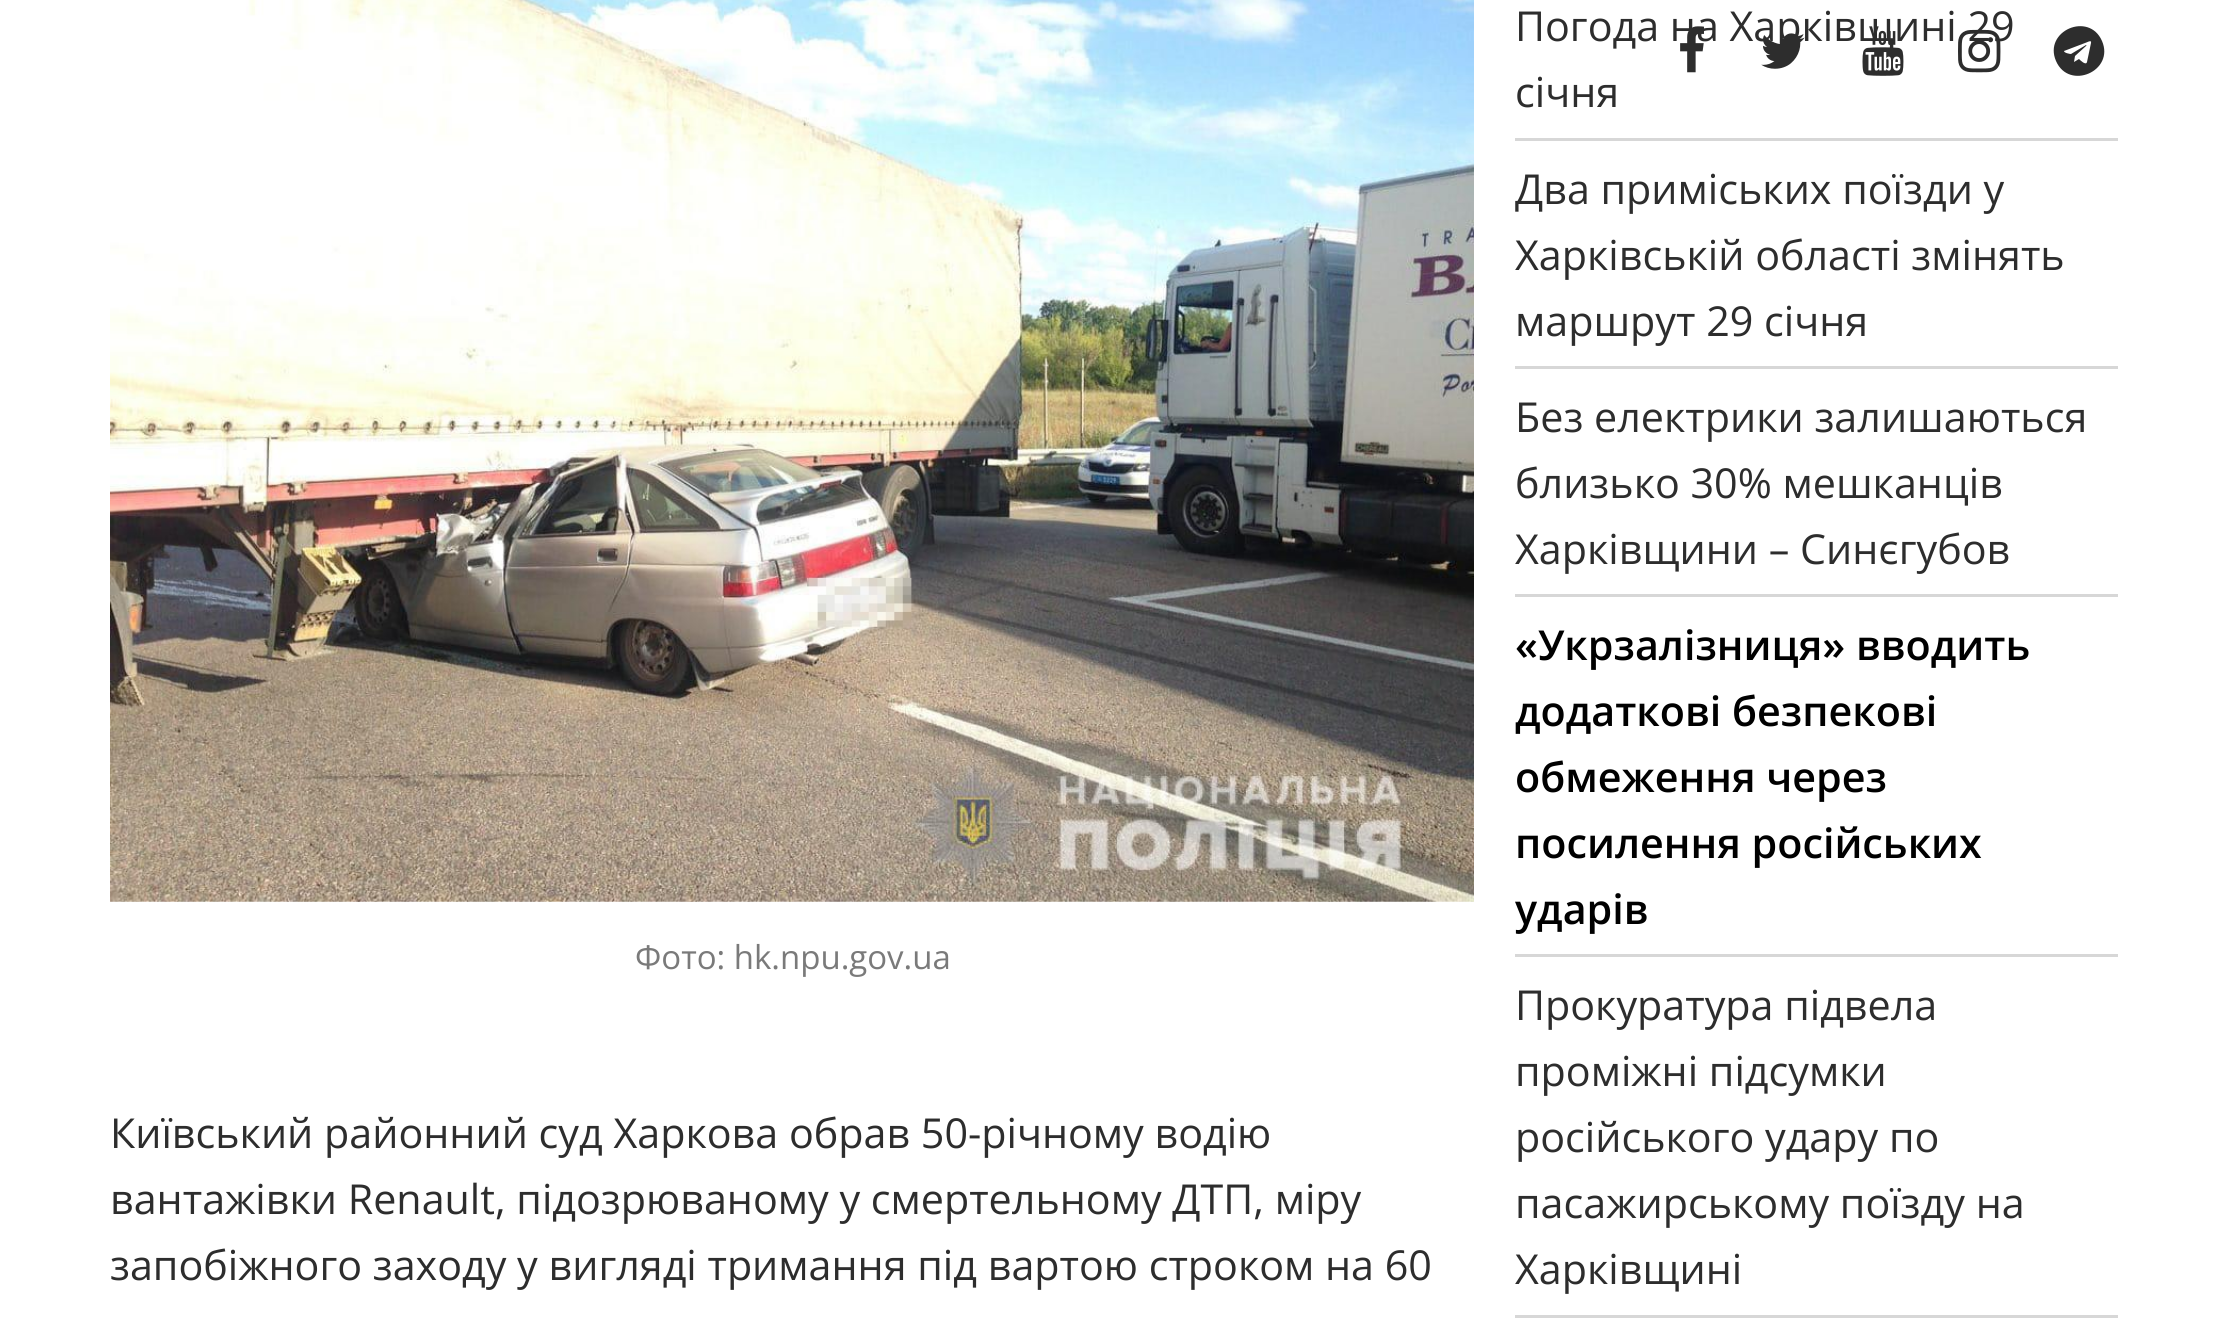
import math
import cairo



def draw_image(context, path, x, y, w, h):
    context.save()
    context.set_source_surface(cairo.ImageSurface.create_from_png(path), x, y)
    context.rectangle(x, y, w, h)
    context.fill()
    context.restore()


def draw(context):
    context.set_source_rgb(1, 1, 1)
    context.paint()
    draw_image(context, "images/1.png", 110, 0, 1364, 902)
    context.set_source_rgb(215 / 255, 215 / 255, 215 / 255)
    context.rectangle(1515, 138, 603, 3)
    context.fill()
    context.rectangle(1515, 366, 603, 3)
    context.fill()
    context.rectangle(1515, 594, 603, 3)
    context.fill()
    context.rectangle(1515, 954, 603, 3)
    context.fill()
    context.rectangle(1515, 1315, 603, 3)
    context.fill()
    context.set_source_rgb(45 / 255, 45 / 255, 45 / 255)
    context.new_path()
    context.move_to(2087, 62)
    context.line_to(2091, 43)
    context.curve_to(2092, 39, 2086, 43, 2085, 43)
    context.line_to(2064, 51)
    context.curve_to(2064, 53, 2070, 54, 2071, 54)
    context.line_to(2086, 45)
    context.curve_to(2086, 45, 2087, 45, 2086, 46)
    context.line_to(2075, 56)
    context.line_to(2074, 62)
    context.line_to(2079, 59)
    context.curve_to(2080, 60, 2086, 66, 2087, 62)
    context.close_path()
    context.move_to(2102, 41)
    context.curve_to(2115, 71, 2069, 91, 2056, 61)
    context.curve_to(2043, 31, 2089, 11, 2102, 41)
    context.close_path()
    context.fill()
    context.select_font_face("Open Sans")
    context.set_font_size(33)
    context.set_source_rgb(122 / 255, 122 / 255, 122 / 255)
    context.move_to(635, 969)
    context.show_text("Фото: hk.npu.gov.ua")
    context.set_font_size(41.25)
    context.set_source_rgb(45 / 255, 45 / 255, 45 / 255)
    context.move_to(110, 1148)
    context.show_text("Київський районний суд Харкова обрав 50-річному водію")
    context.move_to(110, 1214)
    context.show_text("вантажівки Renault, підозрюваному у смертельному ДТП, міру")
    context.move_to(110, 1280)
    context.show_text("запобіжного заходу у вигляді тримання під вартою строком на 60")
    context.move_to(1515, 41)
    context.show_text("Погода на Харківщині 29")
    context.move_to(1515, 107)
    context.show_text("січня")
    context.move_to(1515, 204)
    context.show_text("Два приміських поїзди у")
    context.move_to(1515, 270)
    context.show_text("Харківській області змінять")
    context.move_to(1515, 336)
    context.show_text("маршрут 29 січня")
    context.move_to(1515, 432)
    context.show_text("Без електрики залишаються")
    context.move_to(1515, 498)
    context.show_text("близько 30% мешканців")
    context.move_to(1515, 564)
    context.show_text("Харківщини – Синєгубов")
    context.select_font_face("Open Sans SemiBold")
    context.set_source_rgb(0, 0, 0)
    context.move_to(1515, 660)
    context.show_text("«Укрзалізниця» вводить")
    context.move_to(1515, 726)
    context.show_text("додаткові безпекові")
    context.move_to(1515, 792)
    context.show_text("обмеження через")
    context.move_to(1515, 858)
    context.show_text("посилення російських")
    context.move_to(1515, 924)
    context.show_text("ударів")
    context.select_font_face("Open Sans")
    context.set_source_rgb(45 / 255, 45 / 255, 45 / 255)
    context.move_to(1515, 1020)
    context.show_text("Прокуратура підвела")
    context.move_to(1515, 1086)
    context.show_text("проміжні підсумки")
    context.move_to(1515, 1152)
    context.show_text("російського удару по")
    context.move_to(1515, 1218)
    context.show_text("пасажирському поїзду на")
    context.move_to(1515, 1284)
    context.show_text("Харківщині")
    draw_image(context, "images/2.png", 1680, 26, 24, 47)
    draw_image(context, "images/3.png", 1761, 33, 44, 36)
    draw_image(context, "images/4.png", 1862, 26, 42, 50)
    draw_image(context, "images/5.png", 1958, 29, 43, 44)


surface = cairo.ImageSurface(cairo.Format.RGB24, 2225, 1332)
context = cairo.Context(surface)
options = cairo.FontOptions()
options.set_hint_metrics(cairo.HintMetrics.OFF)
options.set_hint_style(cairo.HintStyle.NONE)
context.set_font_options(options)
context.set_miter_limit(4)
draw(context)
surface.write_to_png("out.png")
